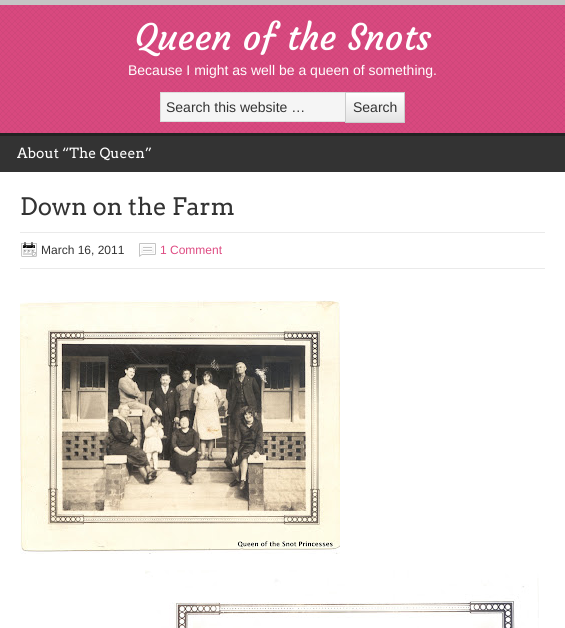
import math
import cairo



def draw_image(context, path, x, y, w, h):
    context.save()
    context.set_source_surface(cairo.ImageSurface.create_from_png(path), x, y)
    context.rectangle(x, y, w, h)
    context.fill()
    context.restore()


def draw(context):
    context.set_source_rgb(1, 1, 1)
    context.paint()
    draw_image(context, "images/1.png", 0, 5, 565, 128)
    context.set_source_rgb(197 / 255, 197 / 255, 197 / 255)
    context.rectangle(0, 0, 565, 5)
    context.fill()
    context.set_source_rgb(245 / 255, 245 / 255, 245 / 255)
    context.rectangle(161, 93, 184, 28)
    context.fill()
    context.rectangle(160.5, 92.5, 191, 29)
    context.set_source_rgb(221 / 255, 221 / 255, 221 / 255)
    context.set_line_width(1)
    context.stroke()
    draw_image(context, "images/2.png", 346, 93, 58, 29)
    context.rectangle(345.5, 92.5, 59, 30)
    context.set_source_rgb(204 / 255, 204 / 255, 204 / 255)
    context.stroke()
    context.set_source_rgb(51 / 255, 51 / 255, 51 / 255)
    context.rectangle(0, 136, 565, 36)
    context.fill()
    context.set_source_rgb(34 / 255, 34 / 255, 34 / 255)
    context.rectangle(0, 133, 565, 3)
    context.fill()
    context.set_source_rgb(234 / 255, 234 / 255, 234 / 255)
    context.rectangle(20, 232, 525, 1)
    context.fill()
    context.rectangle(20, 268, 525, 1)
    context.fill()
    draw_image(context, "images/3.png", 21, 242, 16, 15)
    draw_image(context, "images/4.png", 139, 243, 17, 14)
    draw_image(context, "images/5.png", 20, 300, 320, 254)
    draw_image(context, "images/6.png", 145, 570, 394, 58)
    context.select_font_face("Courgette")
    context.set_font_size(36)
    context.set_source_rgb(1, 1, 1)
    context.move_to(134, 50)
    context.show_text("Queen of the Snots")
    context.select_font_face("Liberation Sans")
    context.set_font_size(14)
    context.move_to(128, 75)
    context.show_text("Because I might as well be a queen of something.")
    context.set_source_rgb(51 / 255, 51 / 255, 51 / 255)
    context.move_to(166, 112)
    context.show_text("Search this website …")
    context.move_to(353, 112)
    context.show_text("Search")
    context.select_font_face("Arvo")
    context.set_source_rgb(1, 1, 1)
    context.move_to(17, 158)
    context.show_text("About “The Queen”")
    context.set_font_size(24)
    context.set_source_rgb(51 / 255, 51 / 255, 51 / 255)
    context.move_to(20, 215)
    context.show_text("Down on the Farm")
    context.select_font_face("Liberation Sans")
    context.set_font_size(12)
    context.move_to(41, 254)
    context.show_text("March 16, 2011")
    context.set_source_rgb(222 / 255, 75 / 255, 130 / 255)
    context.move_to(160, 254)
    context.show_text("1 Comment")


surface = cairo.ImageSurface(cairo.Format.RGB24, 565, 628)
context = cairo.Context(surface)
options = cairo.FontOptions()
options.set_hint_metrics(cairo.HintMetrics.OFF)
options.set_hint_style(cairo.HintStyle.NONE)
context.set_font_options(options)
context.set_miter_limit(4)
draw(context)
surface.write_to_png("out.png")
